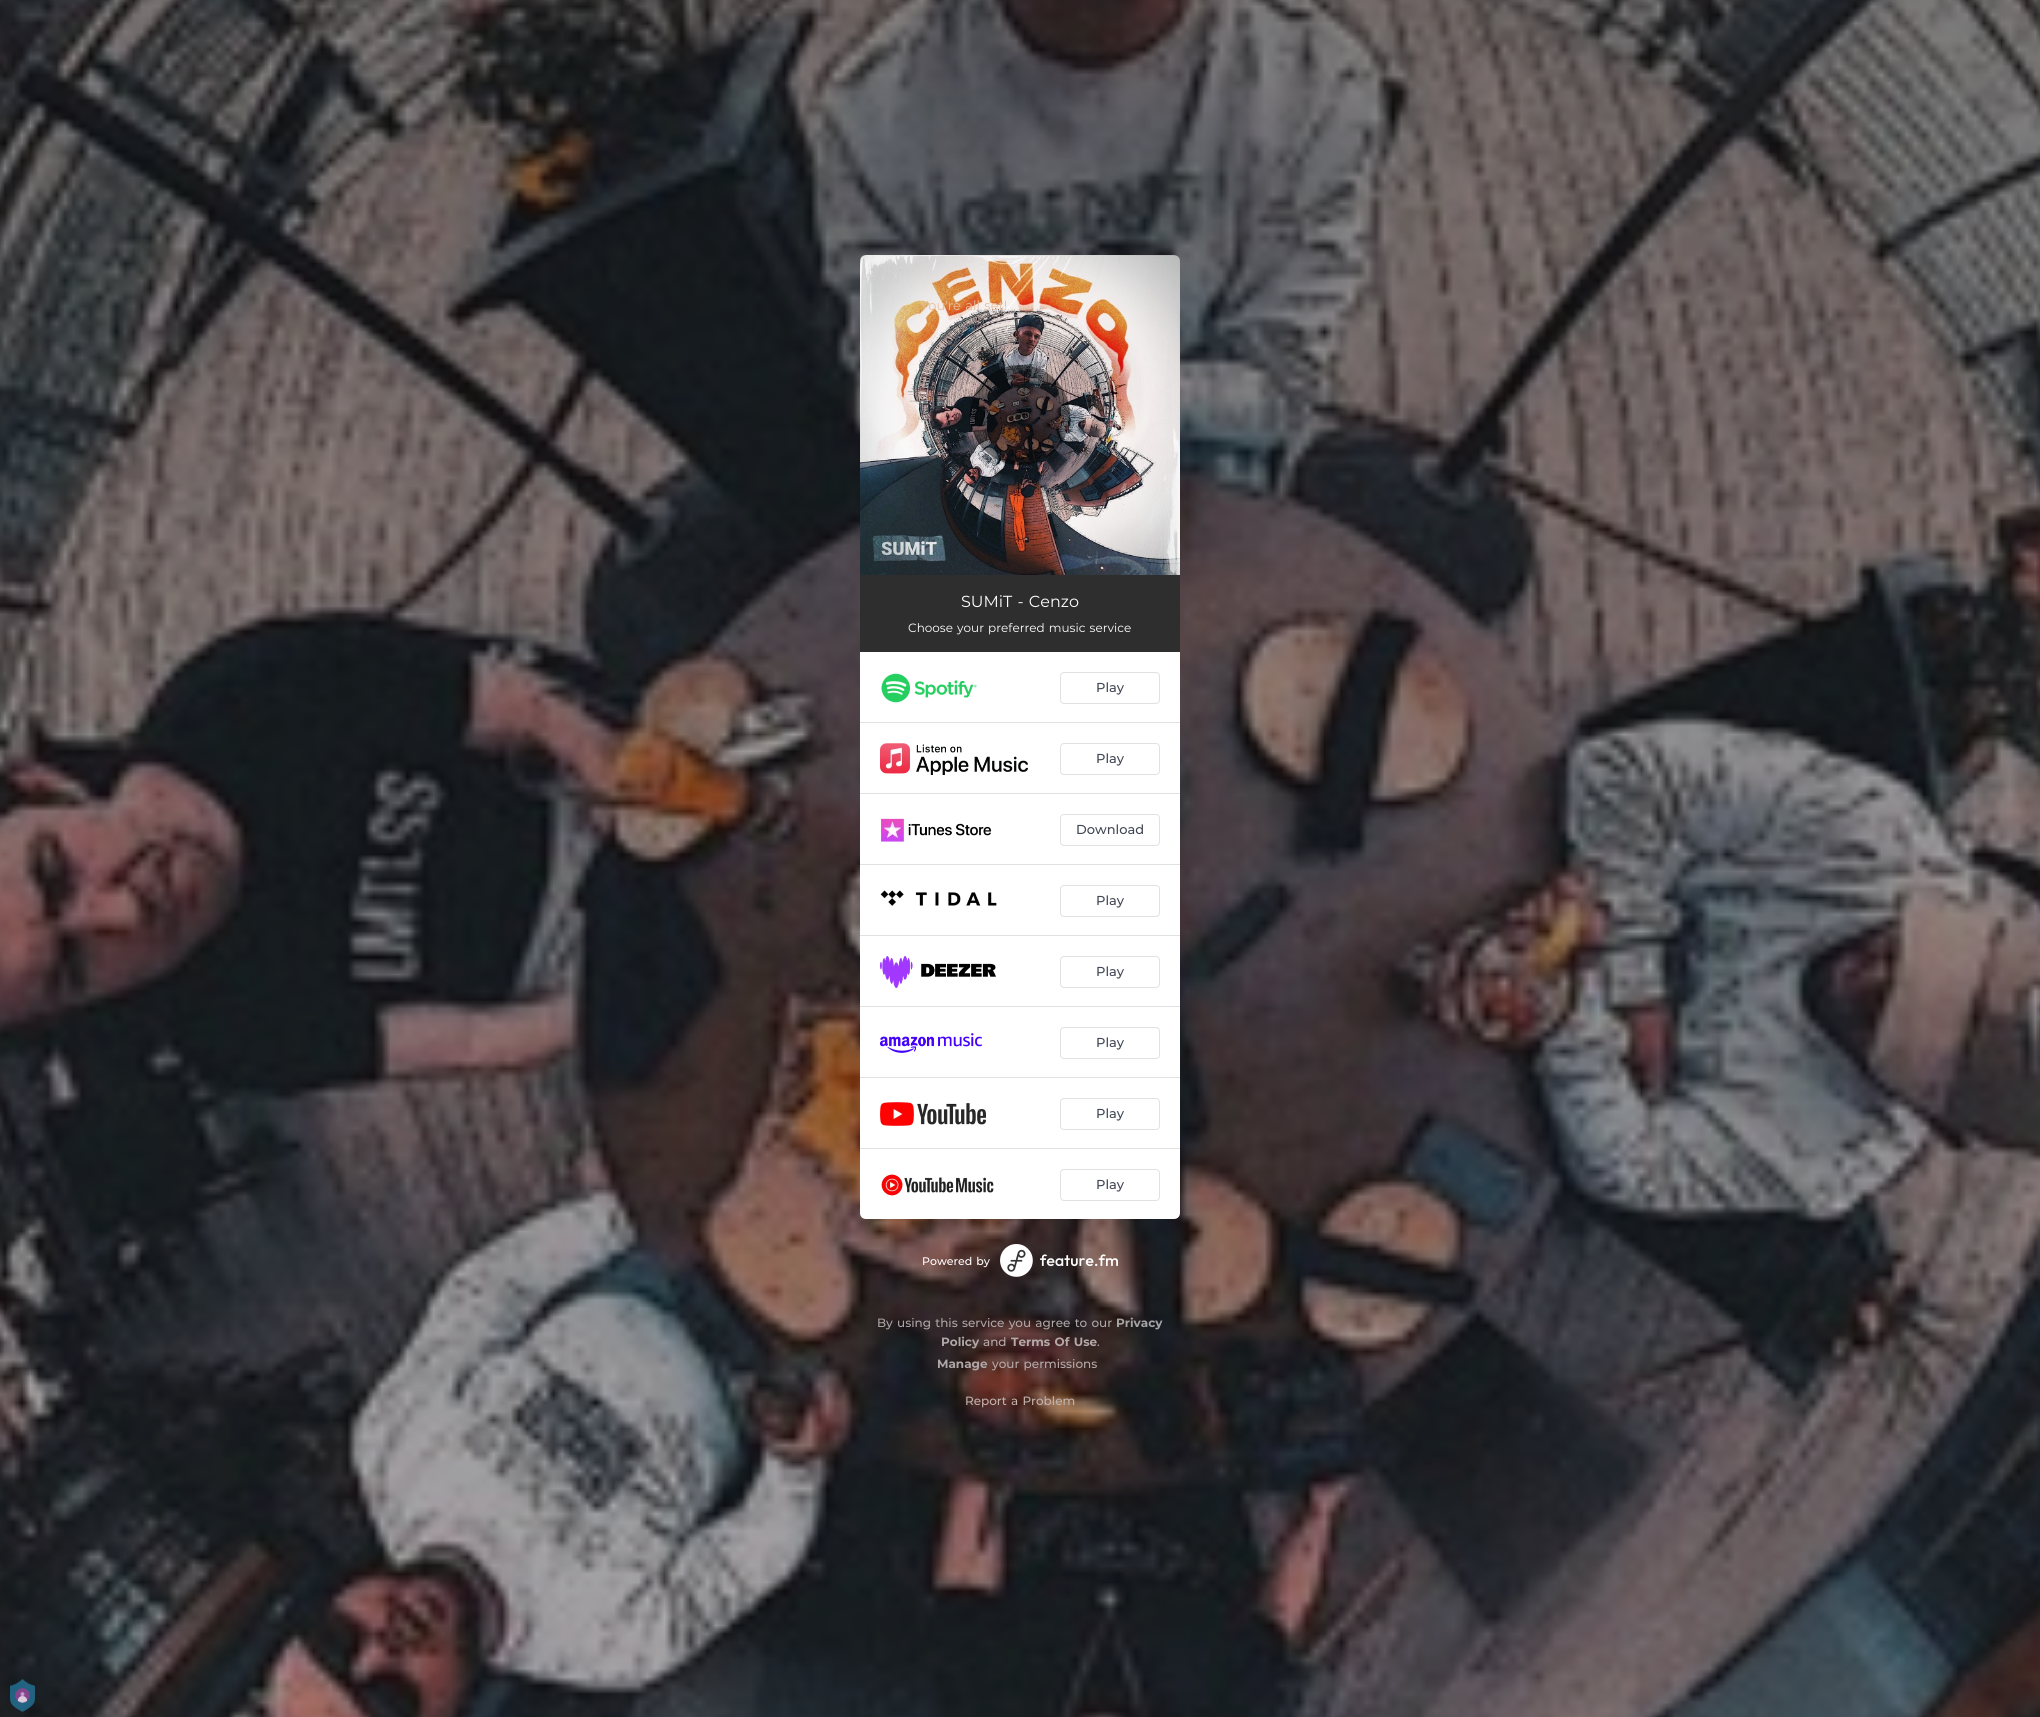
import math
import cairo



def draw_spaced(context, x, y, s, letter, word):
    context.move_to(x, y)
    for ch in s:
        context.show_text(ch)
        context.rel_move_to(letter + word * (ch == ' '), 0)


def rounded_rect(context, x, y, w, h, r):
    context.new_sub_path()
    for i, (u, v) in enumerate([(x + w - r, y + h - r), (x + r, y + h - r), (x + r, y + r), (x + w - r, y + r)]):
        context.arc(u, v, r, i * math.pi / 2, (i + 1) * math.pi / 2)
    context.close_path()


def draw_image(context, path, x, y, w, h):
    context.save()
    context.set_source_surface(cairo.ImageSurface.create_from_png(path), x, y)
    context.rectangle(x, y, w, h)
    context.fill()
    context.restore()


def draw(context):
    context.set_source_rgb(1, 1, 1)
    context.paint()
    draw_image(context, "images/1.png", 0, 0, 2040, 1717)
    draw_image(context, "images/2.png", 860, 255, 320, 320)
    context.set_source_rgba(0, 0, 0, 0.45)
    context.arc(1020, 415, 50, 0, 2 * math.pi)
    context.fill()
    context.set_source_rgb(46 / 255, 46 / 255, 46 / 255)
    context.rectangle(860, 575, 320, 77)
    context.fill()
    context.set_source_rgb(1, 1, 1)
    context.new_path()
    context.move_to(860, 652)
    context.line_to(1180, 652)
    context.line_to(1180, 1213)
    context.curve_to(1180, 1216.5, 1177.5, 1219, 1174, 1219)
    context.line_to(866, 1219)
    context.curve_to(862.5, 1219, 860, 1216.5, 860, 1213)
    context.close_path()
    context.fill()
    context.set_source_rgb(225 / 255, 225 / 255, 228 / 255)
    context.rectangle(860, 722, 320, 1)
    context.fill()
    draw_image(context, "images/3.png", 881, 673, 96, 30)
    rounded_rect(context, 1060.5, 672.5, 99, 31, 3.5)
    context.set_line_width(1)
    context.stroke()
    context.rectangle(860, 793, 320, 1)
    context.fill()
    draw_image(context, "images/4.png", 880, 743, 148, 32)
    rounded_rect(context, 1060.5, 743.5, 99, 31, 3.5)
    context.stroke()
    context.rectangle(860, 864, 320, 1)
    context.fill()
    draw_image(context, "images/5.png", 881, 818, 111, 24)
    rounded_rect(context, 1060.5, 814.5, 99, 31, 3.5)
    context.stroke()
    context.rectangle(860, 935, 320, 1)
    context.fill()
    draw_image(context, "images/6.png", 880, 890, 117, 16)
    rounded_rect(context, 1060.5, 885.5, 99, 31, 3.5)
    context.stroke()
    context.rectangle(860, 1006, 320, 1)
    context.fill()
    draw_image(context, "images/7.png", 880, 956, 116, 32)
    rounded_rect(context, 1060.5, 956.5, 99, 31, 3.5)
    context.stroke()
    context.rectangle(860, 1077, 320, 1)
    context.fill()
    draw_image(context, "images/8.png", 880, 1033, 102, 20)
    rounded_rect(context, 1060.5, 1027.5, 99, 31, 3.5)
    context.stroke()
    context.rectangle(860, 1148, 320, 1)
    context.fill()
    draw_image(context, "images/9.png", 880, 1102, 106, 24)
    rounded_rect(context, 1060.5, 1098.5, 99, 31, 3.5)
    context.stroke()
    draw_image(context, "images/10.png", 881, 1174, 113, 22)
    rounded_rect(context, 1060.5, 1169.5, 99, 31, 3.5)
    context.stroke()
    draw_image(context, "images/11.png", 1000, 1244, 118, 33)
    draw_image(context, "images/12.png", 10, 1679, 25, 33)
    context.select_font_face("Montserrat")
    context.set_font_size(13)
    context.set_source_rgb(232 / 255, 190 / 255, 160 / 255)
    draw_spaced(context, 920, 310, "You're all set!", 0, 1)
    context.set_font_size(16)
    context.set_source_rgb(1, 1, 1)
    draw_spaced(context, 961, 607, "SUMiT - Cenzo", 0, 1)
    context.set_font_size(12)
    draw_spaced(context, 908, 632, "Choose your preferred music service", 0, 1)
    context.select_font_face("Montserrat Medium")
    context.set_font_size(13)
    context.set_source_rgb(65 / 255, 71 / 255, 84 / 255)
    context.move_to(1096, 692)
    context.show_text("Play")
    context.move_to(1096, 763)
    context.show_text("Play")
    context.move_to(1076, 834)
    context.show_text("Download")
    context.move_to(1096, 905)
    context.show_text("Play")
    context.move_to(1096, 976)
    context.show_text("Play")
    context.move_to(1096, 1047)
    context.show_text("Play")
    context.move_to(1096, 1118)
    context.show_text("Play")
    context.move_to(1096, 1189)
    context.show_text("Play")
    context.set_font_size(11)
    context.set_source_rgb(1, 1, 1)
    draw_spaced(context, 922, 1265, "Powered by", 0, 1)
    context.set_font_size(12)
    context.set_source_rgb(173 / 255, 167 / 255, 167 / 255)
    draw_spaced(context, 877, 1327, "By using this service you agree to our", 0, 1)
    context.select_font_face("Montserrat", cairo.FontSlant.NORMAL, cairo.FontWeight.BOLD)
    context.set_source_rgb(166 / 255, 165 / 255, 166 / 255)
    context.move_to(1116, 1327)
    context.show_text("Privacy")
    context.set_source_rgb(173 / 255, 167 / 255, 167 / 255)
    context.move_to(941, 1346)
    context.show_text("Policy")
    context.select_font_face("Montserrat Medium")
    context.set_source_rgb(181 / 255, 170 / 255, 169 / 255)
    context.move_to(983, 1346)
    context.show_text("and")
    context.select_font_face("Montserrat", cairo.FontSlant.NORMAL, cairo.FontWeight.BOLD)
    draw_spaced(context, 1011, 1346, "Terms Of Use", 0, 1)
    context.select_font_face("Montserrat Medium")
    context.set_source_rgb(173 / 255, 167 / 255, 167 / 255)
    context.move_to(1097, 1346)
    context.show_text(".")
    context.select_font_face("Montserrat", cairo.FontSlant.NORMAL, cairo.FontWeight.BOLD)
    context.move_to(937, 1368)
    context.show_text("Manage")
    context.select_font_face("Montserrat Medium")
    context.set_source_rgb(181 / 255, 170 / 255, 169 / 255)
    draw_spaced(context, 992, 1368, "your permissions", 0, 1)
    context.set_source_rgb(193 / 255, 178 / 255, 173 / 255)
    draw_spaced(context, 965, 1405, "Report a Problem", 0, 1)


surface = cairo.ImageSurface(cairo.Format.RGB24, 2040, 1717)
context = cairo.Context(surface)
options = cairo.FontOptions()
options.set_hint_metrics(cairo.HintMetrics.OFF)
options.set_hint_style(cairo.HintStyle.NONE)
context.set_font_options(options)
context.set_miter_limit(4)
draw(context)
surface.write_to_png("out.png")
